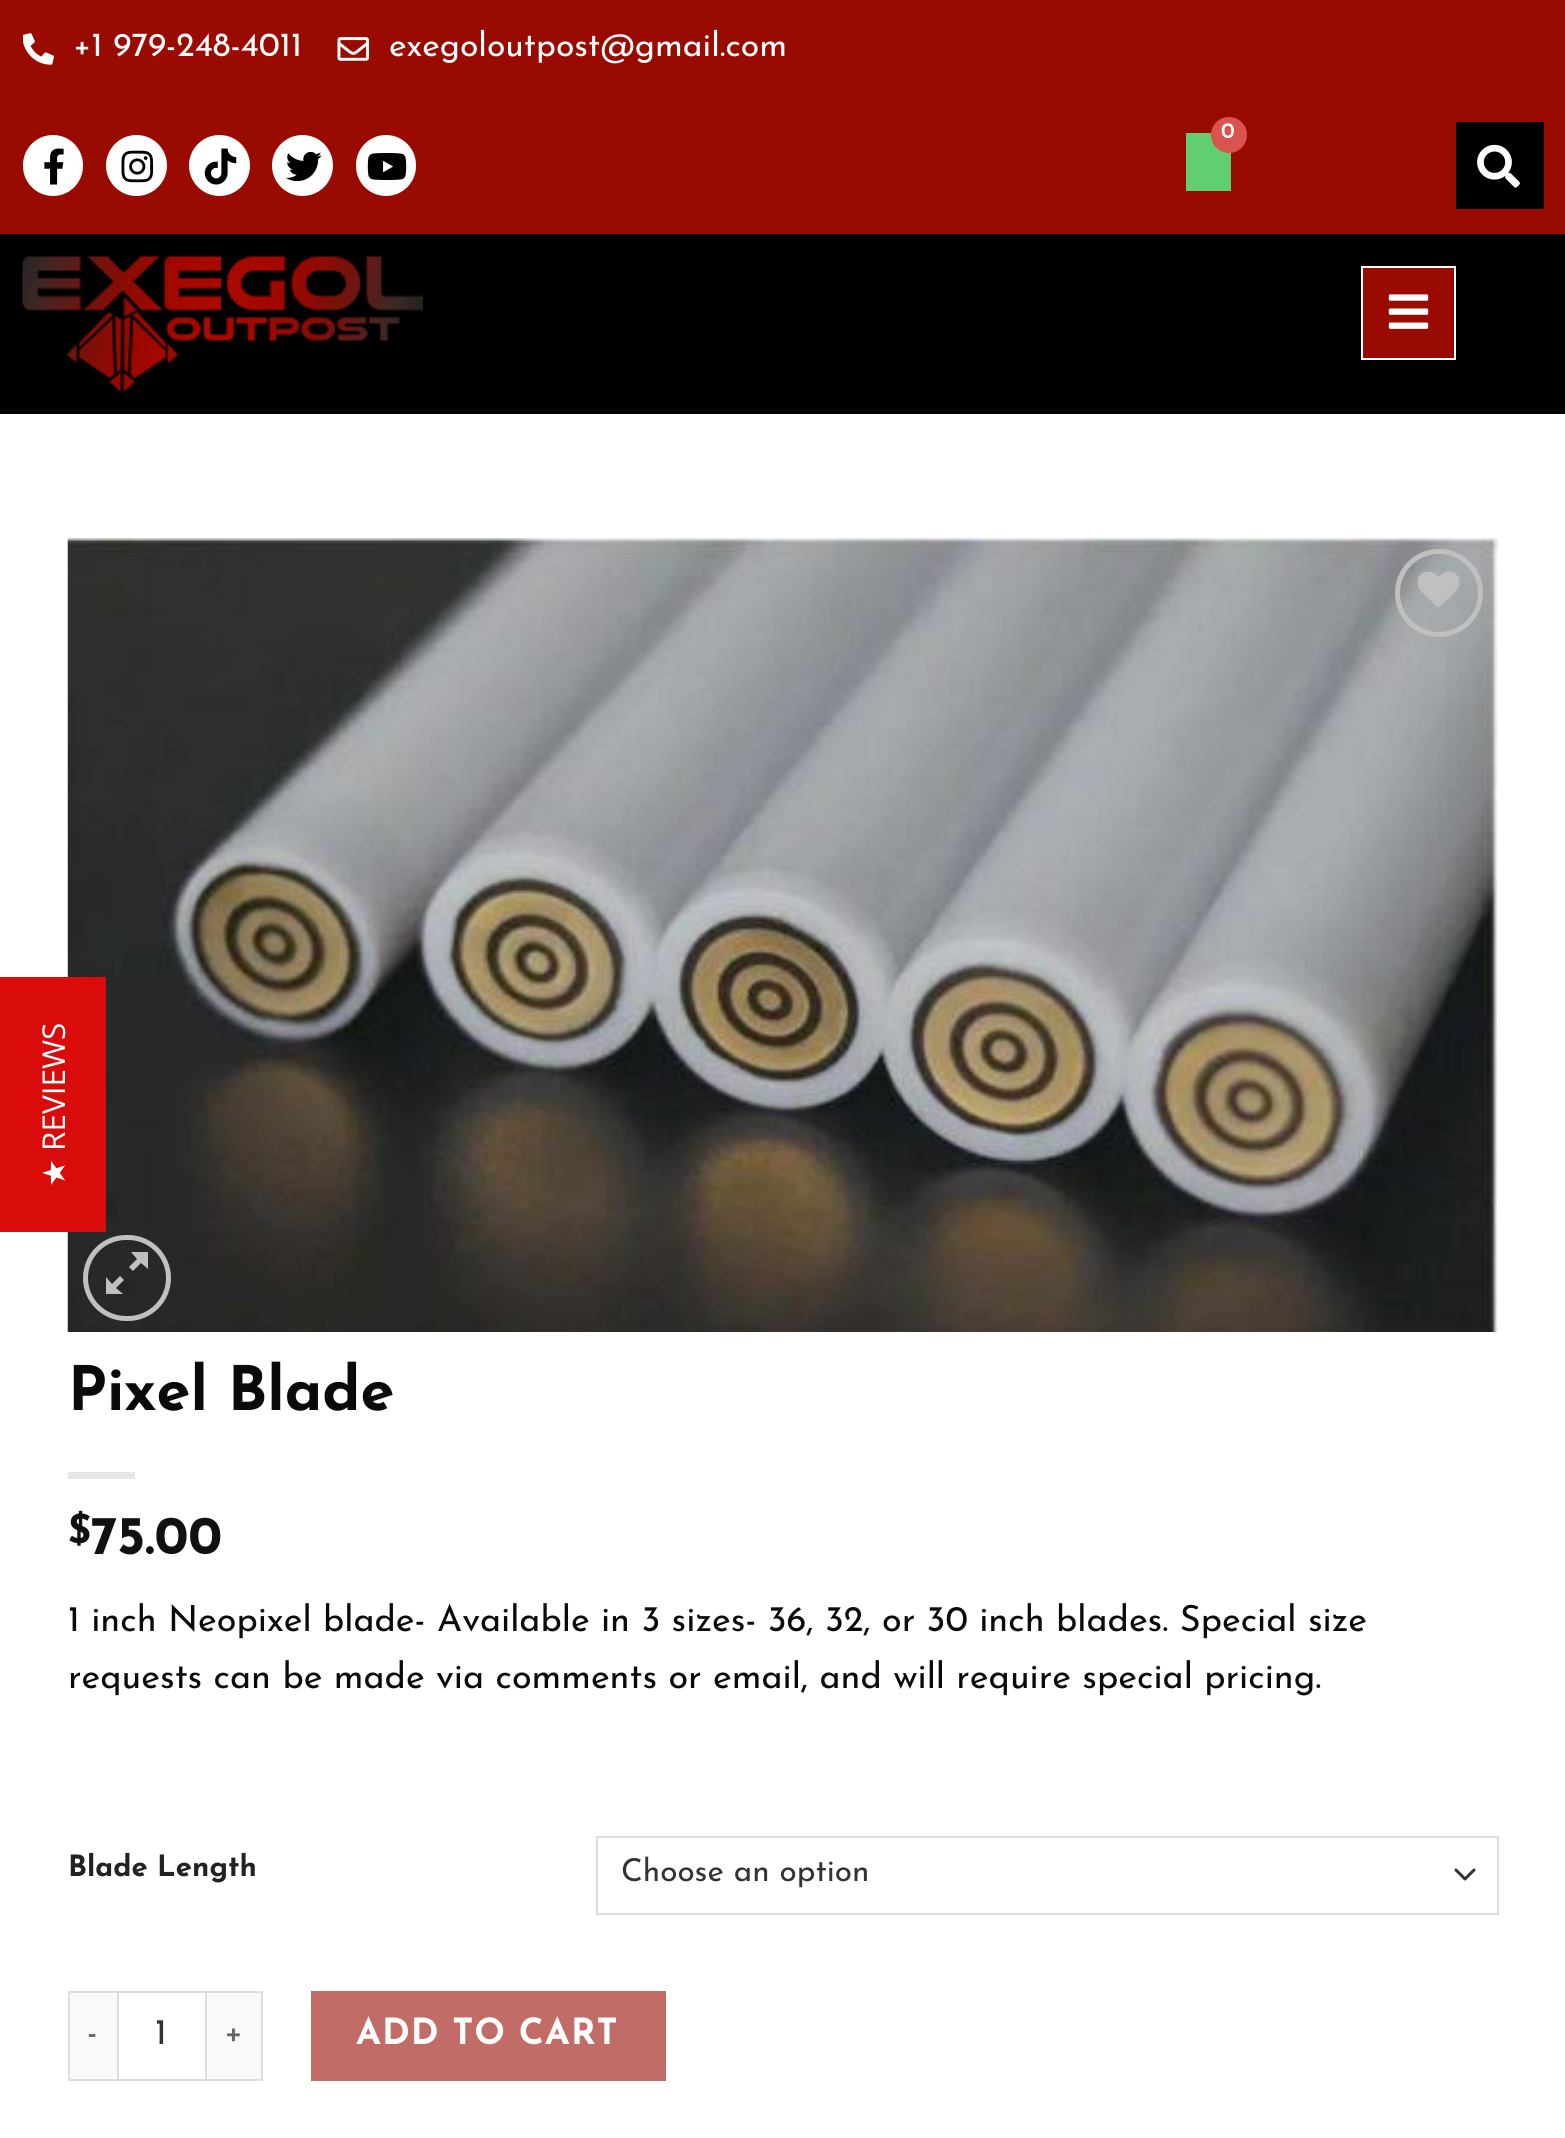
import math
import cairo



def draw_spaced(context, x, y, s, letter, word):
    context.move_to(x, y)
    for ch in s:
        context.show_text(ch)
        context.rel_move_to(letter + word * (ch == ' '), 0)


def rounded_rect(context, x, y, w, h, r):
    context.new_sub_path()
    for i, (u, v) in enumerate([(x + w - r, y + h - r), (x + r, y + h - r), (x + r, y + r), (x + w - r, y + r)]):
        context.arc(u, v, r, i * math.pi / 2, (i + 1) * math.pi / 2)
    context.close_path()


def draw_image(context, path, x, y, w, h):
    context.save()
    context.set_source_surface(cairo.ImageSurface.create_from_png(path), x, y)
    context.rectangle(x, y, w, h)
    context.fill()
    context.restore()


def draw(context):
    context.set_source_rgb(1, 1, 1)
    context.paint()
    draw_image(context, "images/11.png", 67, 538, 1432, 794)
    context.set_source_rgb(217 / 255, 11 / 255, 11 / 255)
    context.rectangle(0, 977, 106, 255)
    context.fill()
    context.set_source_rgb(153 / 255, 10 / 255, 1 / 255)
    context.rectangle(0, 0, 1565, 234)
    context.fill()
    draw_image(context, "images/1.png", 23, 33, 31, 32)
    draw_image(context, "images/2.png", 337, 37, 32, 24)
    context.set_source_rgb(97 / 255, 206 / 255, 112 / 255)
    context.rectangle(1186, 133, 45, 58)
    context.fill()
    context.set_source_rgb(217 / 255, 83 / 255, 79 / 255)
    context.arc(1229, 135, 18, 0, 2 * math.pi)
    context.fill()
    context.set_source_rgb(0, 0, 0)
    context.rectangle(1456, 122, 88, 87)
    context.fill()
    draw_image(context, "images/3.png", 1477, 144, 43, 44)
    context.set_source_rgb(1, 1, 1)
    rounded_rect(context, 23, 135, 60, 61, 30)
    context.fill()
    draw_image(context, "images/4.png", 44, 148, 20, 37)
    context.arc(136.5, 165.5, 30.5, 0, 2 * math.pi)
    context.fill()
    draw_image(context, "images/5.png", 121, 150, 33, 33)
    context.arc(219.5, 165.5, 30.5, 0, 2 * math.pi)
    context.fill()
    draw_image(context, "images/6.png", 204, 148, 33, 37)
    context.arc(302.5, 165.5, 30.5, 0, 2 * math.pi)
    context.fill()
    draw_image(context, "images/7.png", 285, 151, 37, 31)
    rounded_rect(context, 356, 135, 60, 61, 30)
    context.fill()
    draw_image(context, "images/8.png", 367, 153, 40, 27)
    context.set_source_rgb(0, 0, 0)
    context.rectangle(0, 234, 1565, 180)
    context.fill()
    draw_image(context, "images/9.png", 22, 256, 401, 136)
    context.set_source_rgb(153 / 255, 10 / 255, 1 / 255)
    context.rectangle(1362, 267, 93, 92)
    context.fill_preserve()
    context.set_source_rgb(1, 1, 1)
    context.stroke()
    draw_image(context, "images/10.png", 1388, 294, 41, 35)
    context.arc(1439, 593, 41.5, 0, 2 * math.pi)
    context.set_source_rgb(192 / 255, 192 / 255, 192 / 255)
    context.set_line_width(5)
    context.stroke()
    draw_image(context, "images/12.png", 1417, 571, 43, 37)
    rounded_rect(context, 85.5, 1237.5, 83, 81, 40.5)
    context.stroke()
    context.new_path()
    context.move_to(148, 1252)
    context.line_to(148, 1269)
    context.line_to(141, 1263)
    context.line_to(133, 1271)
    context.line_to(129, 1267)
    context.line_to(137, 1259)
    context.line_to(131, 1252)
    context.close_path()
    context.move_to(124, 1280)
    context.line_to(116, 1288)
    context.line_to(123, 1294)
    context.line_to(106, 1294)
    context.line_to(106, 1277)
    context.line_to(112, 1284)
    context.line_to(120, 1276)
    context.close_path()
    context.fill()
    context.set_source_rgb(230 / 255, 230 / 255, 230 / 255)
    context.rectangle(68, 1472, 67, 7)
    context.fill()
    context.new_path()
    context.move_to(1456, 1870)
    context.line_to(1465, 1879)
    context.line_to(1474, 1870)
    context.set_source_rgb(51 / 255, 51 / 255, 51 / 255)
    context.set_line_width(3)
    context.set_line_cap(cairo.LineCap.ROUND)
    context.set_line_join(cairo.LineJoin.ROUND)
    context.stroke()
    context.rectangle(597, 1837, 901, 77)
    context.set_source_rgb(221 / 255, 221 / 255, 221 / 255)
    context.set_line_width(2)
    context.set_line_cap(cairo.LineCap.BUTT)
    context.set_line_join(cairo.LineJoin.MITER)
    context.stroke()
    context.set_source_rgb(249 / 255, 249 / 255, 249 / 255)
    context.rectangle(70, 1993, 47, 86)
    context.fill()
    context.set_source_rgb(221 / 255, 221 / 255, 221 / 255)
    context.rectangle(68, 1991, 49, 2)
    context.fill()
    context.rectangle(68, 2079, 49, 2)
    context.fill()
    context.rectangle(68, 1991, 2, 90)
    context.fill()
    context.rectangle(118, 1992, 88, 88)
    context.stroke()
    context.set_source_rgb(249 / 255, 249 / 255, 249 / 255)
    context.rectangle(207, 1993, 54, 86)
    context.fill()
    context.set_source_rgb(221 / 255, 221 / 255, 221 / 255)
    context.rectangle(207, 1991, 56, 2)
    context.fill()
    context.rectangle(261, 1991, 2, 90)
    context.fill()
    context.rectangle(207, 2079, 56, 2)
    context.fill()
    context.set_source_rgb(194 / 255, 108 / 255, 103 / 255)
    context.rectangle(312, 1992, 353, 88)
    context.fill_preserve()
    context.set_source_rgb(189 / 255, 108 / 255, 103 / 255)
    context.stroke()
    context.select_font_face("Open Sans")
    context.set_font_size(31.5)
    context.set_source_rgb(1, 1, 1)
    context.save()
    context.translate(65, 1151)
    context.rotate(-90 * math.pi / 180)
    context.move_to(0, 0)
    context.show_text("REVIEWS")
    context.restore()
    context.select_font_face("DejaVu Sans")
    context.save()
    context.translate(65, 1187)
    context.rotate(-90 * math.pi / 180)
    context.move_to(0, 0)
    context.show_text("★")
    context.restore()
    context.select_font_face("Josefin Sans")
    context.set_font_size(33.75)
    context.move_to(73, 56)
    context.show_text("+1 979-248-4011")
    context.move_to(389, 56)
    context.show_text("exegoloutpost@gmail.com")
    context.select_font_face("Josefin Sans SemiBold")
    context.set_font_size(22)
    context.move_to(1221, 138)
    context.show_text("0")
    context.select_font_face("Josefin Sans", cairo.FontSlant.NORMAL, cairo.FontWeight.BOLD)
    context.set_font_size(61.25)
    context.set_source_rgb(10 / 255, 10 / 255, 10 / 255)
    context.move_to(68, 1410)
    context.show_text("Pixel Blade")
    context.set_font_size(40)
    context.set_source_rgb(17 / 255, 17 / 255, 17 / 255)
    context.move_to(68, 1543)
    context.show_text("$")
    context.set_font_size(54)
    context.move_to(90, 1554)
    context.show_text("75.00")
    context.select_font_face("Josefin Sans")
    context.set_font_size(36)
    context.set_source_rgb(10 / 255, 10 / 255, 10 / 255)
    context.move_to(68, 1631)
    context.show_text("1 inch Neopixel blade- Available in 3 sizes- 36, 32, or 30 inch blades. Special size")
    context.move_to(68, 1688)
    context.show_text("requests can be made via comments or email, and will require special pricing.")
    context.select_font_face("Josefin Sans", cairo.FontSlant.NORMAL, cairo.FontWeight.BOLD)
    context.set_font_size(29.25)
    context.set_source_rgb(34 / 255, 34 / 255, 34 / 255)
    context.move_to(68, 1876)
    context.show_text("Blade Length")
    context.select_font_face("Josefin Sans")
    context.set_font_size(31.5)
    context.set_source_rgb(51 / 255, 51 / 255, 51 / 255)
    context.move_to(621, 1881)
    context.show_text("Choose an option")
    context.set_font_size(35)
    context.set_source_rgb(102 / 255, 102 / 255, 102 / 255)
    draw_spaced(context, 87, 2043, "-", 1, 0)
    context.set_font_size(36)
    context.set_source_rgb(51 / 255, 51 / 255, 51 / 255)
    context.move_to(155, 2044)
    context.show_text("1")
    context.set_font_size(35)
    context.set_source_rgb(102 / 255, 102 / 255, 102 / 255)
    draw_spaced(context, 224, 2043, "+", 1, 0)
    context.select_font_face("Josefin Sans", cairo.FontSlant.NORMAL, cairo.FontWeight.BOLD)
    context.set_font_size(36)
    context.set_source_rgb(1, 1, 1)
    draw_spaced(context, 356, 2044, "ADD TO CART", 1, 0)


surface = cairo.ImageSurface(cairo.Format.RGB24, 1565, 2138)
context = cairo.Context(surface)
options = cairo.FontOptions()
options.set_hint_metrics(cairo.HintMetrics.OFF)
options.set_hint_style(cairo.HintStyle.NONE)
context.set_font_options(options)
context.set_miter_limit(4)
draw(context)
surface.write_to_png("out.png")
